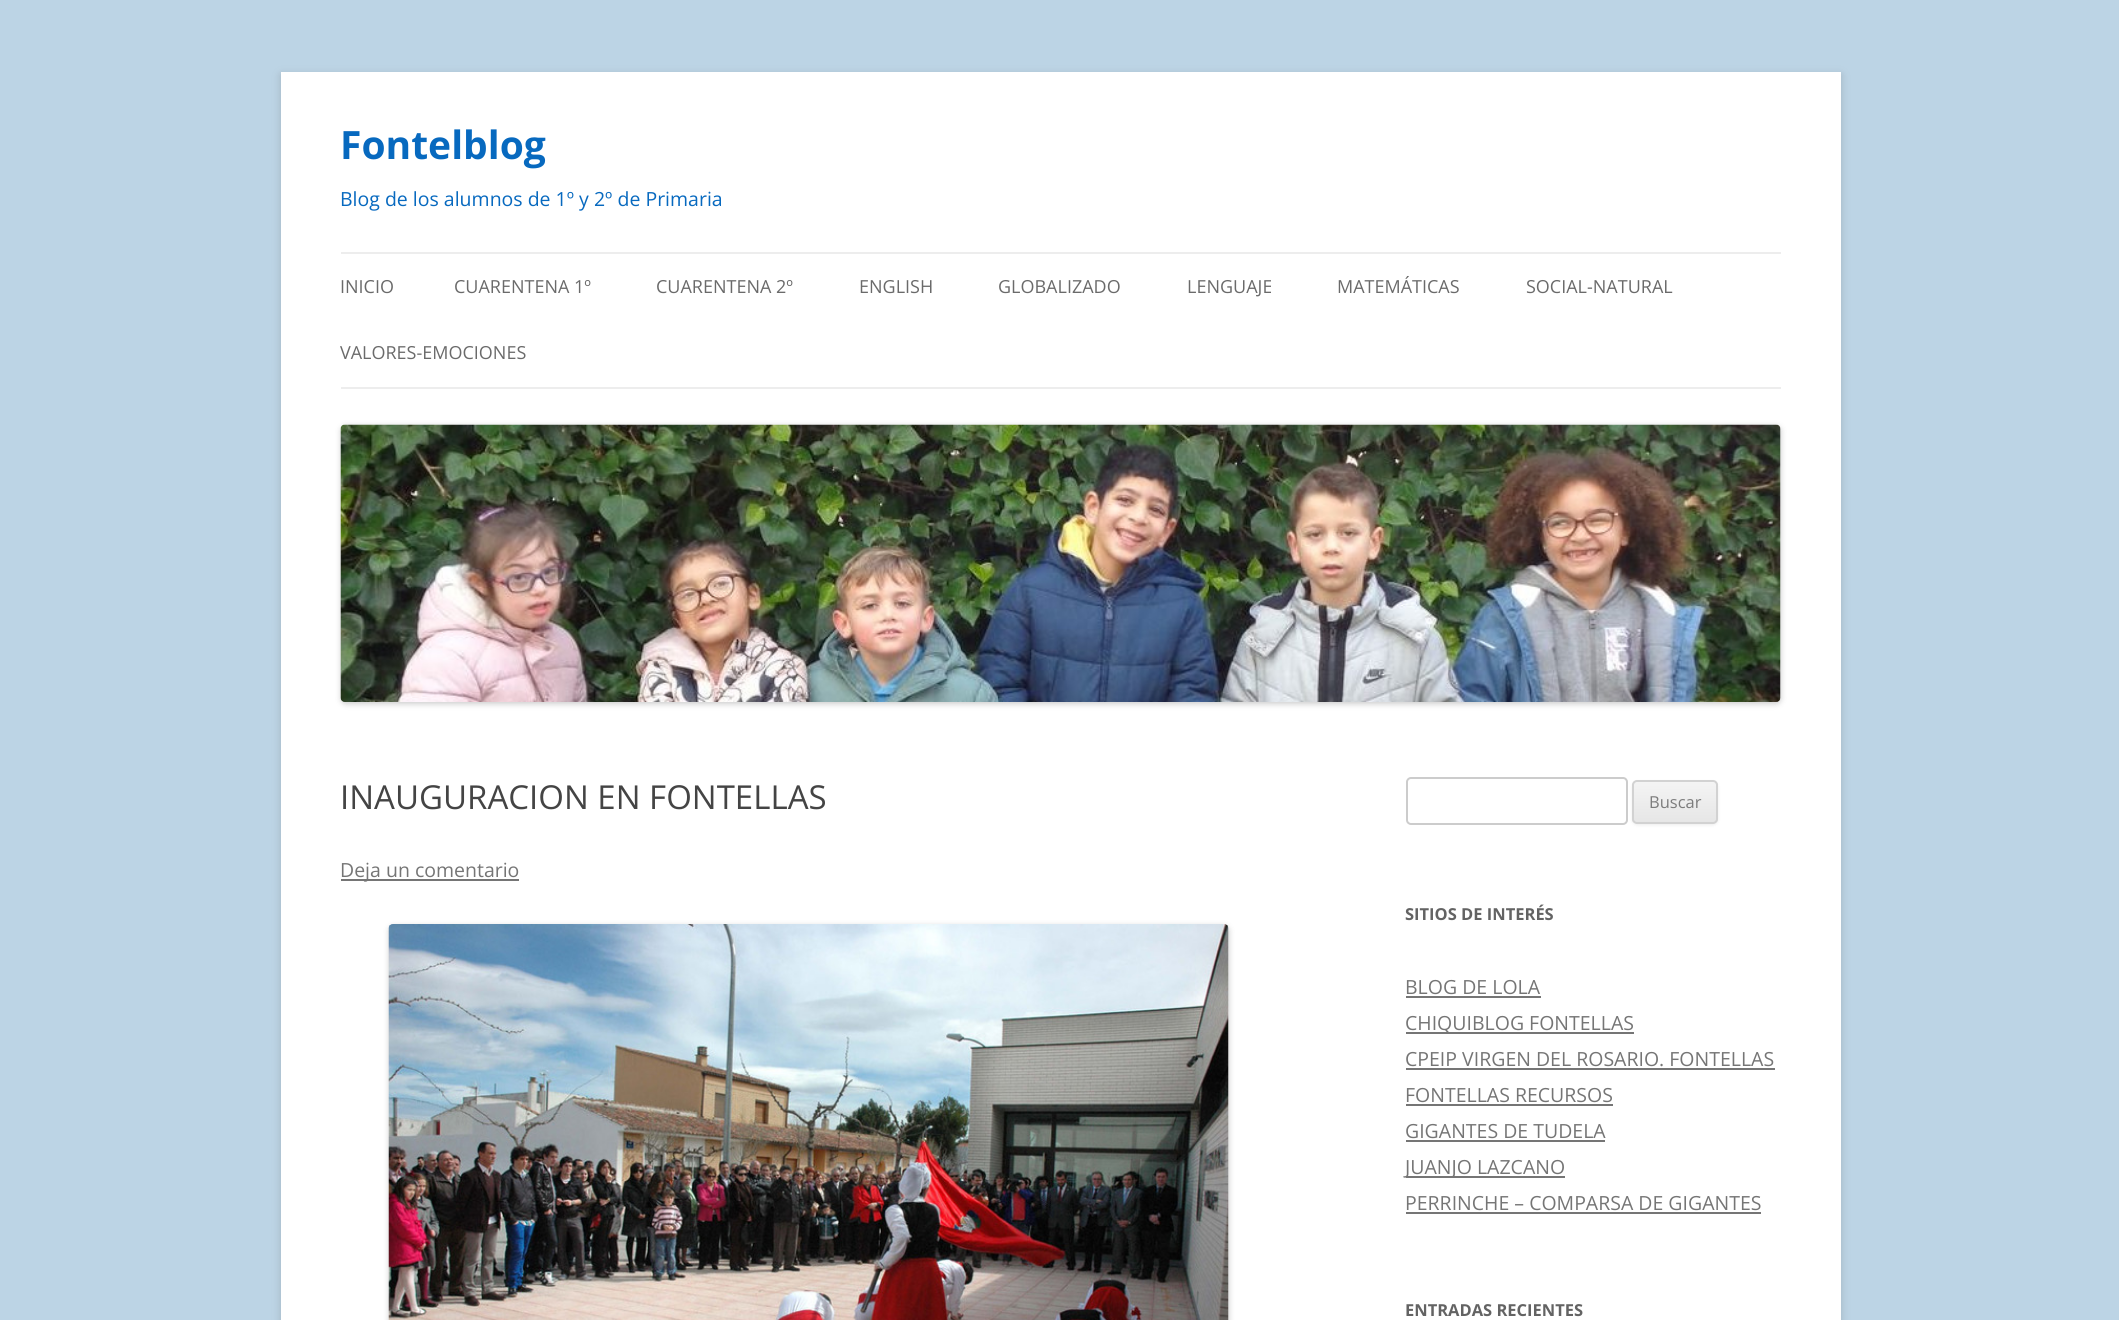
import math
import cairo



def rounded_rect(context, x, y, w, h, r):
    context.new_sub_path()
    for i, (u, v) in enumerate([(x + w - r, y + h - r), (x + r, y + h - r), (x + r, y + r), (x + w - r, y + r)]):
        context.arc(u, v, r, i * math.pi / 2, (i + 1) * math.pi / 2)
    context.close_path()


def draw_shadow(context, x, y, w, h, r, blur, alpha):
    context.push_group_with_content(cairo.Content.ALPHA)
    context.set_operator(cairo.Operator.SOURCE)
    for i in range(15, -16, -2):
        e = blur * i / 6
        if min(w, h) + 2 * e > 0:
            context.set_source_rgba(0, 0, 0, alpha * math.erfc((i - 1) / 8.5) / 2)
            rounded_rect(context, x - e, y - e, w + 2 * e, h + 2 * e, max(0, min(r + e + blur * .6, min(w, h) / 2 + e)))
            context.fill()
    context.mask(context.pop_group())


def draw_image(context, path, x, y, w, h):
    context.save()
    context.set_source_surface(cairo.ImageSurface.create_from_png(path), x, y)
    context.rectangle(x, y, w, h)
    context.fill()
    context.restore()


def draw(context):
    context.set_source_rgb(188 / 255, 212 / 255, 229 / 255)
    context.paint()
    context.set_source_rgb(100 / 255, 100 / 255, 100 / 255)
    draw_shadow(context, 281, 75, 1560, 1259, 0, 4.5, 0.3)
    context.set_source_rgb(1, 1, 1)
    context.rectangle(281, 72, 1560, 1248)
    context.fill()
    context.set_source_rgb(237 / 255, 237 / 255, 237 / 255)
    context.rectangle(341, 252, 1440, 2)
    context.fill()
    context.rectangle(341, 387, 1440, 2)
    context.fill()
    context.set_source_rgb(0, 0, 0)
    draw_shadow(context, 341, 426, 1440, 278, 5, 3, 0.2)
    draw_image(context, "images/1.png", 340, 424, 1441, 278)
    context.set_source_rgb(117 / 255, 117 / 255, 117 / 255)
    context.rectangle(341, 879, 178, 2)
    context.fill()
    context.set_source_rgb(0, 0, 0)
    draw_shadow(context, 389, 926, 840, 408, 5, 3, 0.2)
    draw_image(context, "images/2.png", 388, 924, 841, 396)
    rounded_rect(context, 1407, 778, 220, 46, 4)
    context.set_source_rgb(204 / 255, 204 / 255, 204 / 255)
    context.stroke()
    context.set_source_rgb(64 / 255, 64 / 255, 64 / 255)
    draw_shadow(context, 1632, 782, 86, 43, 5, 1.5, 0.1)
    context.save()
    rounded_rect(context, 1632, 780, 86, 44, 5)
    context.clip()
    gradient = cairo.LinearGradient(1675, 782, 1675, 822)
    gradient.add_color_stop_rgba(0, 244 / 255, 244 / 255, 244 / 255, 1)
    gradient.add_color_stop_rgba(1, 230 / 255, 230 / 255, 230 / 255, 1)
    context.set_source(gradient)
    context.rectangle(1632, 782, 86, 40)
    context.fill()
    context.restore()
    rounded_rect(context, 1633, 781, 84, 42, 4)
    context.set_source_rgb(210 / 255, 210 / 255, 210 / 255)
    context.stroke()
    context.set_source_rgb(117 / 255, 117 / 255, 117 / 255)
    context.rectangle(1406, 996, 135, 2)
    context.fill()
    context.rectangle(1406, 1032, 228, 2)
    context.fill()
    context.rectangle(1406, 1068, 369, 2)
    context.fill()
    context.rectangle(1406, 1104, 207, 2)
    context.fill()
    context.rectangle(1406, 1140, 199, 2)
    context.fill()
    context.rectangle(1406, 1176, 159, 2)
    context.fill()
    context.rectangle(1406, 1212, 355, 2)
    context.fill()
    context.select_font_face("Open Sans", cairo.FontSlant.NORMAL, cairo.FontWeight.BOLD)
    context.set_font_size(39)
    context.set_source_rgb(7 / 255, 105 / 255, 191 / 255)
    context.move_to(340, 159)
    context.show_text("Fontelblog")
    context.select_font_face("Open Sans")
    context.set_font_size(19.5)
    context.move_to(340, 206)
    context.show_text("Blog de los alumnos de 1º y 2º de Primaria")
    context.set_font_size(18)
    context.set_source_rgb(106 / 255, 106 / 255, 106 / 255)
    context.move_to(340, 293)
    context.show_text("INICIO")
    context.move_to(454, 293)
    context.show_text("CUARENTENA 1º")
    context.move_to(656, 293)
    context.show_text("CUARENTENA 2º")
    context.move_to(859, 293)
    context.show_text("ENGLISH")
    context.move_to(998, 293)
    context.show_text("GLOBALIZADO")
    context.move_to(1187, 293)
    context.show_text("LENGUAJE")
    context.move_to(1337, 293)
    context.show_text("MATEMÁTICAS")
    context.move_to(1526, 293)
    context.show_text("SOCIAL-NATURAL")
    context.move_to(340, 359)
    context.show_text("VALORES-EMOCIONES")
    context.set_font_size(33)
    context.set_source_rgb(68 / 255, 68 / 255, 68 / 255)
    context.move_to(340, 809)
    context.show_text("INAUGURACION EN FONTELLAS")
    context.set_font_size(19.5)
    context.set_source_rgb(117 / 255, 117 / 255, 117 / 255)
    context.move_to(340, 877)
    context.show_text("Deja un comentario")
    context.set_font_size(16.5)
    context.set_source_rgb(124 / 255, 124 / 255, 124 / 255)
    context.move_to(1649, 808)
    context.show_text("Buscar")
    context.select_font_face("Open Sans", cairo.FontSlant.NORMAL, cairo.FontWeight.BOLD)
    context.set_source_rgb(99 / 255, 99 / 255, 99 / 255)
    context.move_to(1405, 920)
    context.show_text("SITIOS DE INTERÉS")
    context.select_font_face("Open Sans")
    context.set_font_size(19.5)
    context.set_source_rgb(117 / 255, 117 / 255, 117 / 255)
    context.move_to(1405, 994)
    context.show_text("BLOG DE LOLA")
    context.move_to(1405, 1030)
    context.show_text("CHIQUIBLOG FONTELLAS")
    context.move_to(1405, 1066)
    context.show_text("CPEIP VIRGEN DEL ROSARIO. FONTELLAS")
    context.move_to(1405, 1102)
    context.show_text("FONTELLAS RECURSOS")
    context.move_to(1405, 1138)
    context.show_text("GIGANTES DE TUDELA")
    context.move_to(1405, 1174)
    context.show_text("JUANJO LAZCANO")
    context.move_to(1405, 1210)
    context.show_text("PERRINCHE – COMPARSA DE GIGANTES")
    context.select_font_face("Open Sans", cairo.FontSlant.NORMAL, cairo.FontWeight.BOLD)
    context.set_font_size(16.5)
    context.set_source_rgb(99 / 255, 99 / 255, 99 / 255)
    context.move_to(1405, 1316)
    context.show_text("ENTRADAS RECIENTES")


surface = cairo.ImageSurface(cairo.Format.RGB24, 2119, 1320)
context = cairo.Context(surface)
options = cairo.FontOptions()
options.set_hint_metrics(cairo.HintMetrics.OFF)
options.set_hint_style(cairo.HintStyle.NONE)
context.set_font_options(options)
context.set_miter_limit(4)
draw(context)
surface.write_to_png("out.png")
